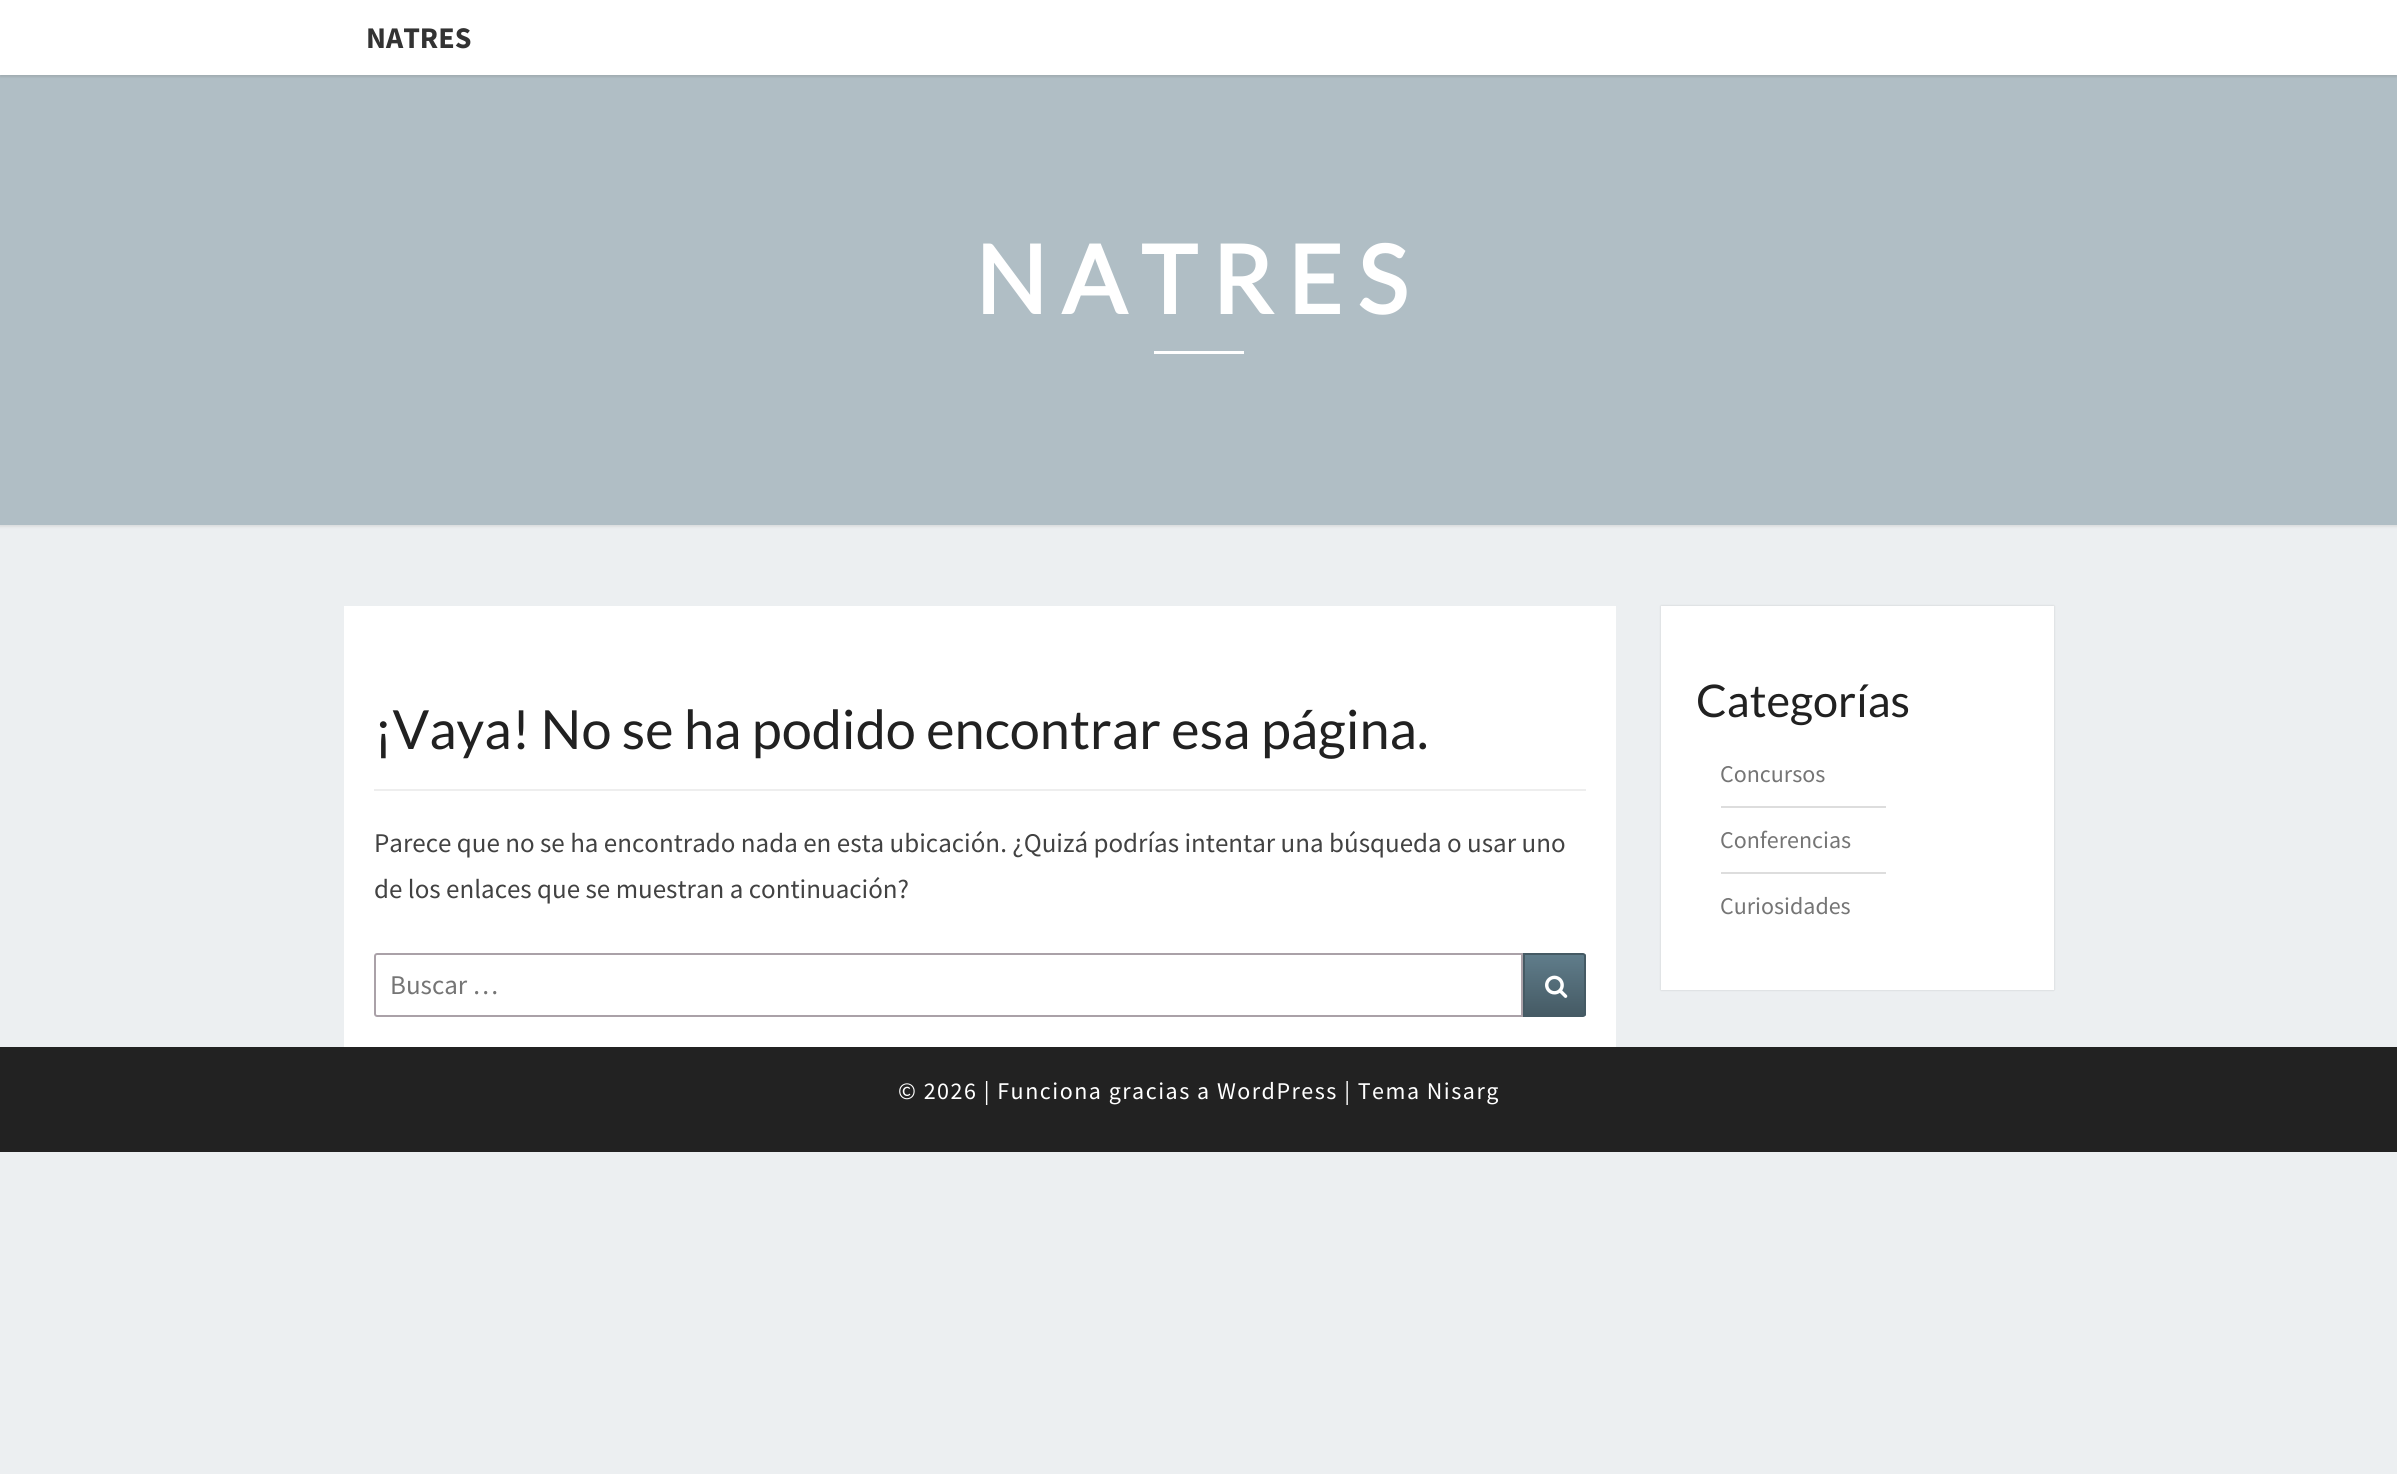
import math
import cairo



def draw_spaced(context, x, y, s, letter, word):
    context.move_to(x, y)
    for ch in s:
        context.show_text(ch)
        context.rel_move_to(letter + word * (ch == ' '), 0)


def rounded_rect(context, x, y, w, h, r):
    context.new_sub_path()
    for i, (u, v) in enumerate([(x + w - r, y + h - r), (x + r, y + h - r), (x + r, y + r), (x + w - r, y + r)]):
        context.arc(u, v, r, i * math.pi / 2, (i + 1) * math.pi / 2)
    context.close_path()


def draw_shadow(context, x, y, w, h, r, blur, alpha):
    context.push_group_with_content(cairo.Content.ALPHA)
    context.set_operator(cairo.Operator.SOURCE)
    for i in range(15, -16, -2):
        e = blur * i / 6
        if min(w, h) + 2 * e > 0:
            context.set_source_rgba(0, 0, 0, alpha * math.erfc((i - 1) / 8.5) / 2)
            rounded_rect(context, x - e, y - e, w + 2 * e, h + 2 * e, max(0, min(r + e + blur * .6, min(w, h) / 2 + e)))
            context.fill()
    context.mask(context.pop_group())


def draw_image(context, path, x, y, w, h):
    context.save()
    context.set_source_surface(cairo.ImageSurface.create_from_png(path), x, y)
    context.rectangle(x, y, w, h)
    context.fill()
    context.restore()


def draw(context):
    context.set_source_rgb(236 / 255, 239 / 255, 241 / 255)
    context.paint()
    context.set_source_rgb(182 / 255, 182 / 255, 182 / 255)
    draw_shadow(context, -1, 74, 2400, 453, 0, 1, 0.3)
    context.set_source_rgb(176 / 255, 190 / 255, 197 / 255)
    context.rectangle(0, 75, 2397, 450)
    context.fill()
    context.set_source_rgb(100 / 255, 100 / 255, 100 / 255)
    draw_shadow(context, 0, 2, 2397, 75, 0, 1, 0.2)
    context.set_source_rgb(1, 1, 1)
    context.rectangle(0, 0, 2397, 75)
    context.fill()
    context.rectangle(1154, 351, 90, 3)
    context.fill()
    context.rectangle(344, 606, 1272, 441)
    context.fill()
    context.set_source_rgb(238 / 255, 238 / 255, 238 / 255)
    context.rectangle(374, 789, 1212, 2)
    context.fill()
    context.new_path()
    context.move_to(377, 954)
    context.line_to(1522, 954)
    context.line_to(1522, 1016)
    context.line_to(377, 1016)
    context.curve_to(376, 1016, 375, 1015, 375, 1014)
    context.line_to(375, 956)
    context.curve_to(375, 955, 376, 954, 377, 954)
    context.close_path()
    context.set_source_rgb(170 / 255, 161 / 255, 168 / 255)
    context.stroke()
    context.save()
    context.new_path()
    context.move_to(1523, 953)
    context.line_to(1583, 953)
    context.curve_to(1584.5, 953, 1586, 954.5, 1586, 956)
    context.line_to(1586, 1014)
    context.curve_to(1586, 1015.5, 1584.5, 1017, 1583, 1017)
    context.line_to(1523, 1017)
    context.close_path()
    context.clip()
    gradient = cairo.LinearGradient(1554, 954, 1554, 1016)
    gradient.add_color_stop_rgba(0, 96 / 255, 125 / 255, 139 / 255, 1)
    gradient.add_color_stop_rgba(1, 69 / 255, 90 / 255, 100 / 255, 1)
    context.set_source(gradient)
    context.rectangle(1525, 954, 61, 62)
    context.fill()
    context.restore()
    context.new_path()
    context.move_to(1524, 954)
    context.line_to(1583, 954)
    context.curve_to(1584, 954, 1585, 955, 1585, 956)
    context.line_to(1585, 1014)
    context.curve_to(1585, 1015, 1584, 1016, 1583, 1016)
    context.line_to(1524, 1016)
    context.close_path()
    context.set_source_rgb(69 / 255, 90 / 255, 100 / 255)
    context.stroke()
    draw_image(context, "images/1.png", 1545, 975, 23, 23)
    context.set_source_rgb(0, 0, 0)
    draw_shadow(context, 1661, 606, 393, 384, 0, 1, 0.15)
    context.set_source_rgb(1, 1, 1)
    context.rectangle(1661, 606, 393, 384)
    context.fill()
    context.set_source_rgb(221 / 255, 221 / 255, 221 / 255)
    context.rectangle(1721, 806, 165, 2)
    context.fill()
    context.rectangle(1721, 872, 165, 2)
    context.fill()
    context.set_source_rgb(34 / 255, 34 / 255, 34 / 255)
    context.rectangle(0, 1047, 2397, 105)
    context.fill()
    context.select_font_face("Source Sans Pro", cairo.FontSlant.NORMAL, cairo.FontWeight.BOLD)
    context.set_font_size(30)
    context.set_source_rgb(51 / 255, 51 / 255, 51 / 255)
    context.move_to(366, 48)
    context.show_text("NATRES")
    context.select_font_face("Lato", cairo.FontSlant.NORMAL, cairo.FontWeight.BOLD)
    context.set_font_size(94.5)
    context.set_source_rgb(1, 1, 1)
    draw_spaced(context, 975, 314, "NATRES", 15, 0)
    context.select_font_face("Lato")
    context.set_font_size(54)
    context.set_source_rgb(33 / 255, 33 / 255, 33 / 255)
    context.move_to(374, 749)
    context.show_text("¡Vaya! No se ha podido encontrar esa página.")
    context.select_font_face("Source Sans Pro")
    context.set_font_size(27)
    context.set_source_rgb(66 / 255, 66 / 255, 66 / 255)
    context.move_to(374, 852)
    context.show_text("Parece que no se ha encontrado nada en esta ubicación. ¿Quizá podrías intentar una búsqueda o usar uno")
    context.move_to(374, 898)
    context.show_text("de los enlaces que se muestran a continuación?")
    context.set_source_rgb(117 / 255, 117 / 255, 117 / 255)
    context.move_to(390, 994)
    context.show_text("Buscar …")
    context.select_font_face("Lato")
    context.set_font_size(45)
    context.set_source_rgb(33 / 255, 33 / 255, 33 / 255)
    context.move_to(1696, 717)
    context.show_text("Categorías")
    context.select_font_face("Source Sans Pro")
    context.set_font_size(24)
    context.set_source_rgb(117 / 255, 117 / 255, 117 / 255)
    context.move_to(1720, 782)
    context.show_text("Concursos")
    context.move_to(1720, 848)
    context.show_text("Conferencias")
    context.move_to(1720, 914)
    context.show_text("Curiosidades")
    context.set_source_rgb(1, 1, 1)
    draw_spaced(context, 898, 1099, "© 2026 | Funciona gracias a WordPress | Tema Nisarg", 1.5, 0)


surface = cairo.ImageSurface(cairo.Format.RGB24, 2397, 1474)
context = cairo.Context(surface)
options = cairo.FontOptions()
options.set_hint_metrics(cairo.HintMetrics.OFF)
options.set_hint_style(cairo.HintStyle.NONE)
context.set_font_options(options)
context.set_miter_limit(4)
draw(context)
surface.write_to_png("out.png")
